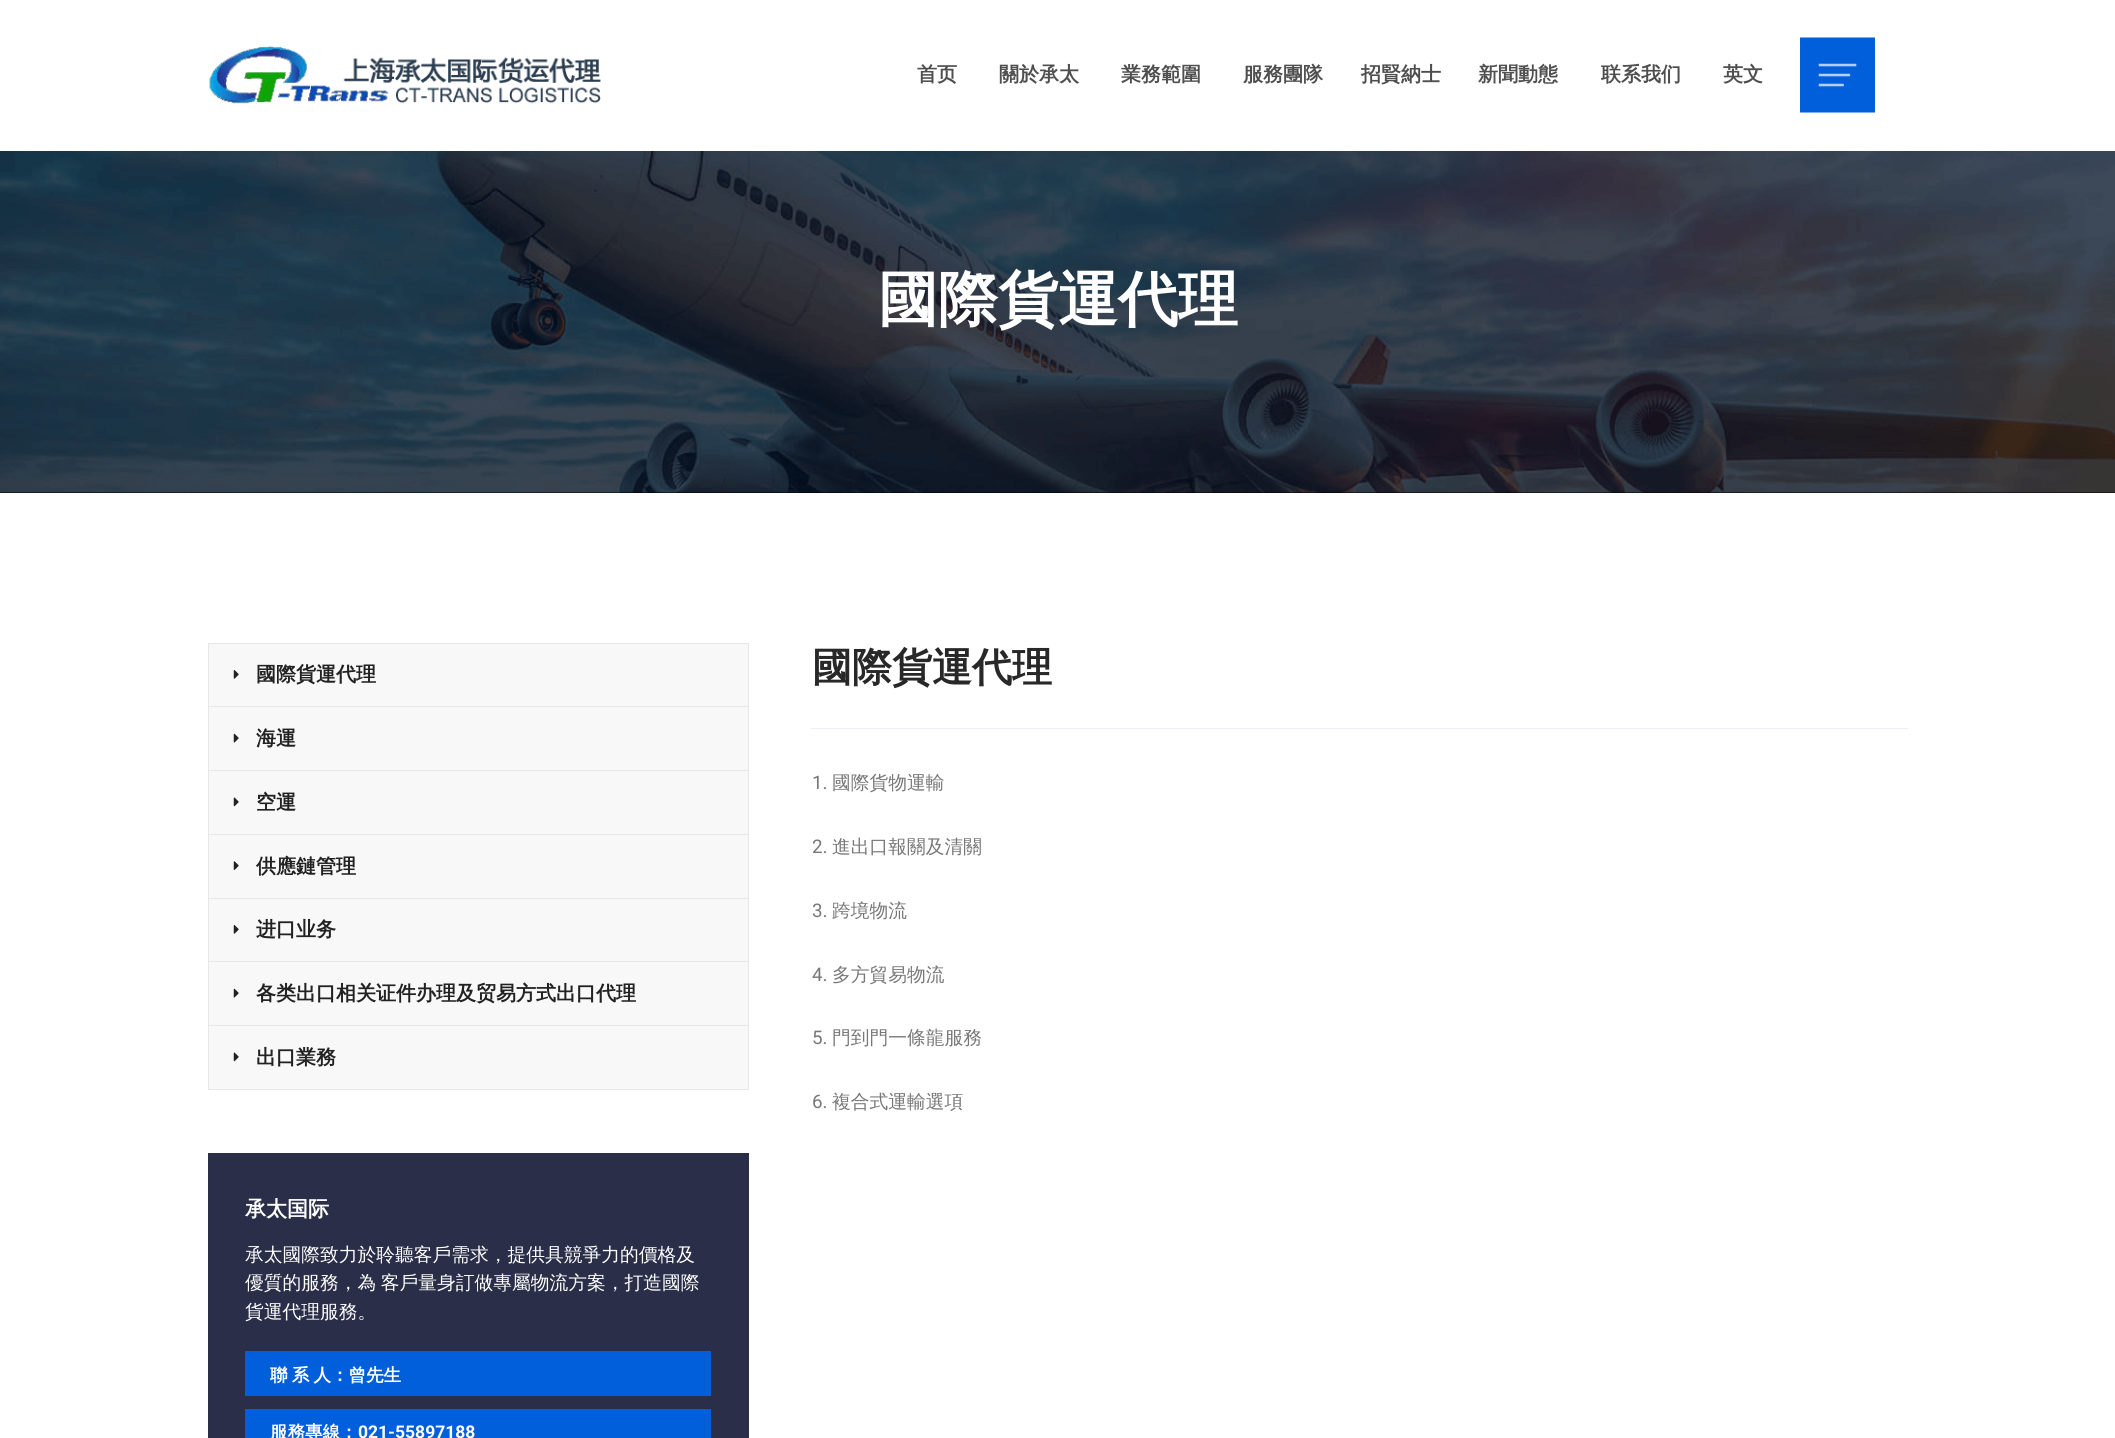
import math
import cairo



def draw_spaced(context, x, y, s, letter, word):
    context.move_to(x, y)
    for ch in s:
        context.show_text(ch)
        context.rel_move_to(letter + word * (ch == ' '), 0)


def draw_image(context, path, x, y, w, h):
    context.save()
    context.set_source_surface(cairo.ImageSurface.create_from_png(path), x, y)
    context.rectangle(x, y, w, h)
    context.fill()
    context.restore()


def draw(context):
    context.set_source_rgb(1, 1, 1)
    context.paint()
    draw_image(context, "images/1.png", 209, 46, 392, 58)
    draw_image(context, "images/2.png", 1800, 37, 75, 76)
    context.set_source_rgb(0, 0, 0)
    context.rectangle(0, 492, 2115, 1)
    context.fill()
    draw_image(context, "images/3.png", 0, 151, 2115, 342)
    context.set_source_rgb(248 / 255, 248 / 255, 248 / 255)
    context.rectangle(209, 644, 539, 445)
    context.fill()
    context.set_source_rgb(231 / 255, 231 / 255, 231 / 255)
    context.rectangle(208, 643, 541, 1)
    context.fill()
    context.rectangle(748, 643, 1, 63)
    context.fill()
    context.rectangle(208, 643, 1, 63)
    context.fill()
    draw_image(context, "images/4.png", 233, 670, 6, 9)
    context.rectangle(208, 706, 541, 1)
    context.fill()
    context.rectangle(748, 706, 1, 64)
    context.fill()
    context.rectangle(208, 706, 1, 64)
    context.fill()
    draw_image(context, "images/5.png", 233, 733, 6, 10)
    context.rectangle(208, 770, 541, 1)
    context.fill()
    context.rectangle(748, 770, 1, 64)
    context.fill()
    context.rectangle(208, 770, 1, 64)
    context.fill()
    draw_image(context, "images/6.png", 233, 797, 6, 10)
    context.rectangle(208, 834, 541, 1)
    context.fill()
    context.rectangle(748, 834, 1, 64)
    context.fill()
    context.rectangle(208, 834, 1, 64)
    context.fill()
    draw_image(context, "images/7.png", 233, 861, 6, 9)
    context.rectangle(208, 898, 541, 1)
    context.fill()
    context.rectangle(748, 898, 1, 63)
    context.fill()
    context.rectangle(208, 898, 1, 63)
    context.fill()
    draw_image(context, "images/4.png", 233, 925, 6, 9)
    context.rectangle(208, 961, 541, 1)
    context.fill()
    context.rectangle(748, 961, 1, 64)
    context.fill()
    context.rectangle(208, 961, 1, 64)
    context.fill()
    draw_image(context, "images/5.png", 233, 988, 6, 10)
    context.rectangle(208.5, 1025.5, 540, 64)
    context.set_line_width(1)
    context.stroke()
    draw_image(context, "images/6.png", 233, 1052, 6, 10)
    context.set_source_rgb(42 / 255, 46 / 255, 72 / 255)
    context.rectangle(208, 1153, 541, 285)
    context.fill()
    context.set_source_rgb(2 / 255, 95 / 255, 220 / 255)
    context.rectangle(245, 1351, 466, 45)
    context.fill()
    context.rectangle(245, 1409, 466, 29)
    context.fill()
    context.set_source_rgb(236 / 255, 239 / 255, 248 / 255)
    context.rectangle(811, 728, 1097, 1)
    context.fill()
    context.select_font_face("WenQuanYi Zen Hei", cairo.FontSlant.NORMAL, cairo.FontWeight.BOLD)
    context.set_font_size(20)
    context.set_source_rgb(79 / 255, 79 / 255, 79 / 255)
    context.move_to(917, 81)
    context.show_text("首页")
    context.move_to(999, 81)
    context.show_text("關於承太")
    context.move_to(1121, 81)
    context.show_text("業務範圍")
    context.move_to(1243, 81)
    context.show_text("服務團隊")
    context.move_to(1361, 81)
    context.show_text("招賢納士")
    context.move_to(1478, 81)
    context.show_text("新聞動態")
    context.move_to(1601, 81)
    context.show_text("联系我们")
    context.move_to(1723, 81)
    context.show_text("英文")
    context.set_font_size(60)
    context.set_source_rgb(1, 1, 1)
    context.move_to(878, 320)
    context.show_text("國際貨運代理")
    context.set_font_size(20)
    context.set_source_rgb(34 / 255, 34 / 255, 34 / 255)
    context.move_to(256, 681)
    context.show_text("國際貨運代理")
    context.move_to(256, 745)
    context.show_text("海運")
    context.move_to(256, 809)
    context.show_text("空運")
    context.move_to(256, 873)
    context.show_text("供應鏈管理")
    context.move_to(256, 936)
    context.show_text("进口业务")
    context.move_to(256, 1000)
    context.show_text("各类出口相关证件办理及贸易方式出口代理")
    context.move_to(256, 1064)
    context.show_text("出口業務")
    context.set_font_size(21)
    context.set_source_rgb(1, 1, 1)
    context.move_to(245, 1216)
    context.show_text("承太国际")
    context.select_font_face("WenQuanYi Zen Hei Medium")
    context.set_font_size(18.75)
    context.move_to(245, 1261)
    context.show_text("承太國際致力於聆聽客戶需求，提供具競爭力的價格及")
    draw_spaced(context, 245, 1289, "優質的服務，為 客戶量身訂做專屬物流方案，打造國際", 0, -1)
    context.move_to(245, 1318)
    context.show_text("貨運代理服務。")
    context.select_font_face("WenQuanYi Zen Hei", cairo.FontSlant.NORMAL, cairo.FontWeight.BOLD)
    context.set_font_size(17.5)
    draw_spaced(context, 270, 1381, "聯 系 人：曾先生", 0, -1)
    context.move_to(270, 1438)
    context.show_text("服務專線：")
    context.select_font_face("Roboto", cairo.FontSlant.NORMAL, cairo.FontWeight.BOLD)
    context.move_to(358, 1438)
    context.show_text("021-55897188")
    context.select_font_face("WenQuanYi Zen Hei", cairo.FontSlant.NORMAL, cairo.FontWeight.BOLD)
    context.set_font_size(40)
    context.set_source_rgb(40 / 255, 40 / 255, 40 / 255)
    context.move_to(812, 681)
    context.show_text("國際貨運代理")
    context.select_font_face("Roboto")
    context.set_font_size(18.75)
    context.set_source_rgb(119 / 255, 119 / 255, 119 / 255)
    context.move_to(812, 789)
    context.show_text("1.")
    context.select_font_face("WenQuanYi Zen Hei Medium")
    context.move_to(832, 789)
    context.show_text("國際貨物運輸")
    context.select_font_face("Roboto")
    context.move_to(812, 853)
    context.show_text("2.")
    context.select_font_face("WenQuanYi Zen Hei Medium")
    context.move_to(832, 853)
    context.show_text("進出口報關及清關")
    context.select_font_face("Roboto")
    context.move_to(812, 917)
    context.show_text("3.")
    context.select_font_face("WenQuanYi Zen Hei Medium")
    context.move_to(832, 917)
    context.show_text("跨境物流")
    context.select_font_face("Roboto")
    context.move_to(812, 981)
    context.show_text("4.")
    context.select_font_face("WenQuanYi Zen Hei Medium")
    context.move_to(832, 981)
    context.show_text("多方貿易物流")
    context.select_font_face("Roboto")
    context.move_to(812, 1044)
    context.show_text("5.")
    context.select_font_face("WenQuanYi Zen Hei Medium")
    context.move_to(832, 1044)
    context.show_text("門到門一條龍服務")
    context.select_font_face("Roboto")
    context.move_to(812, 1108)
    context.show_text("6.")
    context.select_font_face("WenQuanYi Zen Hei Medium")
    context.move_to(832, 1108)
    context.show_text("複合式運輸選項")


surface = cairo.ImageSurface(cairo.Format.RGB24, 2115, 1438)
context = cairo.Context(surface)
options = cairo.FontOptions()
options.set_hint_metrics(cairo.HintMetrics.OFF)
options.set_hint_style(cairo.HintStyle.NONE)
context.set_font_options(options)
context.set_miter_limit(4)
draw(context)
surface.write_to_png("out.png")
